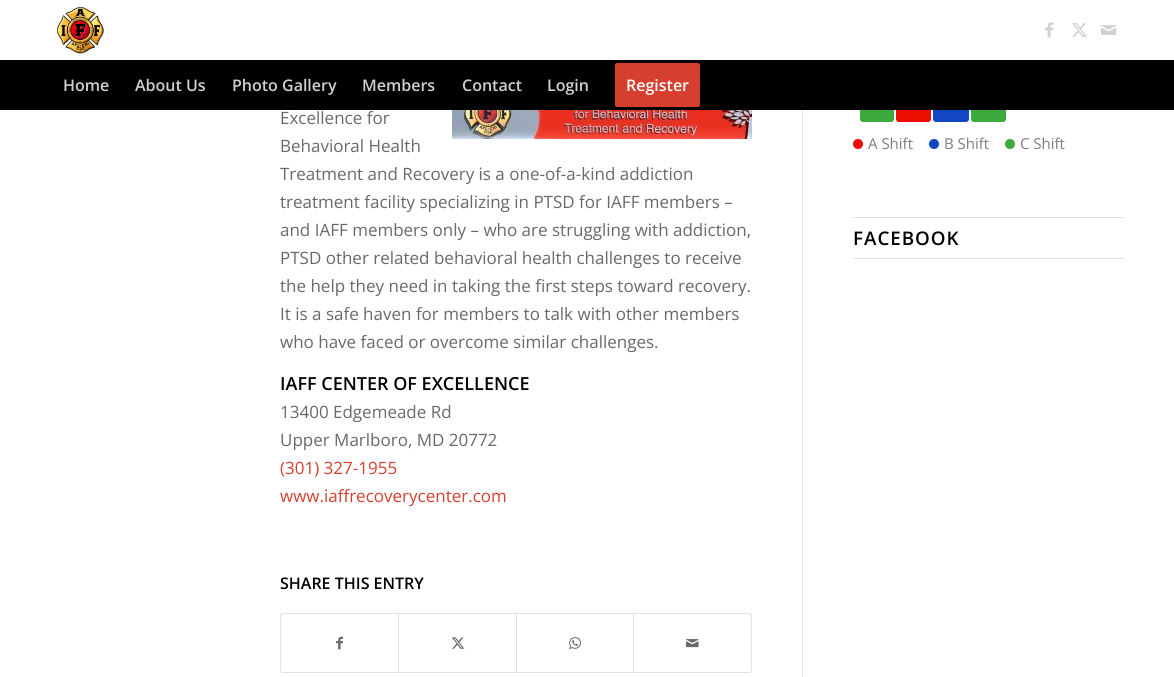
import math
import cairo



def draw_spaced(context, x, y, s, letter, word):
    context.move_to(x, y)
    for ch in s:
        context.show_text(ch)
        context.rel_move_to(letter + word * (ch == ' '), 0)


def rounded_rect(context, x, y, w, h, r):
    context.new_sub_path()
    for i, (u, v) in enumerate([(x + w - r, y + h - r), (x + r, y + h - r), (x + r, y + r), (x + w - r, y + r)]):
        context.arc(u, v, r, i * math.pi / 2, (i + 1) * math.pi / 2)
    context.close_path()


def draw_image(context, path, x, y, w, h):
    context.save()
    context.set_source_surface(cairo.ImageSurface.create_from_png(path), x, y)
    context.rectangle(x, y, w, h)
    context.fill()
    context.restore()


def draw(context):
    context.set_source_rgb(1, 1, 1)
    context.paint()
    draw_image(context, "images/1.png", 57, 7, 47, 47)
    draw_image(context, "images/2.png", 1045, 22, 9, 16)
    draw_image(context, "images/3.png", 1072, 23, 15, 14)
    draw_image(context, "images/4.png", 1101, 25, 16, 10)
    context.set_source_rgb(60 / 255, 169 / 255, 60 / 255)
    rounded_rect(context, 860, 79, 34, 43, 3)
    context.fill()
    context.set_source_rgb(234 / 255, 13 / 255, 0)
    rounded_rect(context, 896, 79, 35, 43, 3)
    context.fill()
    context.set_source_rgb(19 / 255, 71 / 255, 193 / 255)
    rounded_rect(context, 933, 79, 36, 43, 3)
    context.fill()
    context.set_source_rgb(60 / 255, 169 / 255, 60 / 255)
    rounded_rect(context, 971, 79, 35, 43, 3)
    context.fill()
    context.set_source_rgb(0, 0, 0)
    context.rectangle(0, 60, 1174, 50)
    context.fill()
    context.set_source_rgb(214 / 255, 62 / 255, 45 / 255)
    rounded_rect(context, 616, 64, 83, 42, 1)
    context.fill_preserve()
    context.stroke()
    context.set_source_rgb(225 / 255, 225 / 255, 225 / 255)
    context.rectangle(802, 110, 1, 567)
    context.fill()
    draw_image(context, "images/5.png", 452, 110, 300, 29)
    rounded_rect(context, 280.5, 613.5, 471, 59, 2.5)
    context.set_line_width(1)
    context.stroke()
    draw_image(context, "images/6.png", 336, 636, 7, 14)
    context.rectangle(398, 614, 1, 58)
    context.fill()
    draw_image(context, "images/7.png", 451, 637, 14, 12)
    context.rectangle(516, 614, 1, 58)
    context.fill()
    draw_image(context, "images/8.png", 569, 637, 12, 13)
    context.rectangle(633, 614, 1, 58)
    context.fill()
    draw_image(context, "images/9.png", 686, 639, 13, 9)
    context.set_source_rgb(234 / 255, 13 / 255, 0)
    context.arc(858, 144, 5, 0, 2 * math.pi)
    context.fill()
    context.set_source_rgb(19 / 255, 71 / 255, 193 / 255)
    context.arc(934, 144, 5, 0, 2 * math.pi)
    context.fill()
    context.set_source_rgb(60 / 255, 169 / 255, 60 / 255)
    context.arc(1010, 144, 5, 0, 2 * math.pi)
    context.fill()
    context.set_source_rgb(225 / 255, 225 / 255, 225 / 255)
    context.rectangle(853, 217, 271, 1)
    context.fill()
    context.rectangle(853, 258, 271, 1)
    context.fill()
    context.select_font_face("Open Sans SemiBold")
    context.set_font_size(16)
    context.set_source_rgb(209 / 255, 209 / 255, 209 / 255)
    context.move_to(63, 91)
    context.show_text("Home")
    context.move_to(135, 91)
    context.show_text("About Us")
    context.move_to(232, 91)
    context.show_text("Photo Gallery")
    context.move_to(362, 91)
    context.show_text("Members")
    context.move_to(462, 91)
    context.show_text("Contact")
    context.move_to(547, 91)
    context.show_text("Login")
    context.set_source_rgb(1, 1, 1)
    context.move_to(626, 91)
    context.show_text("Register")
    context.select_font_face("Open Sans")
    context.set_font_size(17)
    context.set_source_rgb(105 / 255, 105 / 255, 105 / 255)
    context.move_to(280, 124)
    context.show_text("Excellence for")
    context.move_to(280, 152)
    context.show_text("Behavioral Health")
    context.move_to(280, 180)
    context.show_text("Treatment and Recovery is a one-of-a-kind addiction")
    context.move_to(280, 208)
    context.show_text("treatment facility specializing in PTSD for IAFF members –")
    context.move_to(280, 236)
    context.show_text("and IAFF members only – who are struggling with addiction,")
    context.move_to(280, 264)
    context.show_text("PTSD other related behavioral health challenges to receive")
    context.move_to(280, 292)
    context.show_text("the help they need in taking the first steps toward recovery.")
    context.move_to(280, 320)
    context.show_text("It is a safe haven for members to talk with other members")
    context.move_to(280, 348)
    context.show_text("who have faced or overcome similar challenges.")
    context.select_font_face("Open Sans SemiBold")
    context.set_font_size(18)
    context.set_source_rgb(0, 0, 0)
    context.move_to(280, 390)
    context.show_text("IAFF CENTER OF EXCELLENCE")
    context.select_font_face("Open Sans")
    context.set_font_size(17)
    context.set_source_rgb(105 / 255, 105 / 255, 105 / 255)
    context.move_to(280, 418)
    context.show_text("13400 Edgemeade Rd")
    context.move_to(280, 446)
    context.show_text("Upper Marlboro, MD 20772")
    context.set_source_rgb(214 / 255, 62 / 255, 45 / 255)
    context.move_to(280, 474)
    context.show_text("(301) 327-1955")
    context.move_to(280, 502)
    context.show_text("www.iaffrecoverycenter.com")
    context.select_font_face("Open Sans SemiBold")
    context.set_font_size(16)
    context.set_source_rgb(0, 0, 0)
    context.move_to(280, 589)
    context.show_text("SHARE THIS ENTRY")
    context.select_font_face("Open Sans")
    context.set_font_size(15)
    context.set_source_rgb(125 / 255, 125 / 255, 125 / 255)
    context.move_to(868, 149)
    context.show_text("A Shift")
    context.move_to(944, 149)
    context.show_text("B Shift")
    context.move_to(1020, 149)
    context.show_text("C Shift")
    context.select_font_face("Open Sans SemiBold")
    context.set_font_size(18.75)
    context.set_source_rgb(0, 0, 0)
    draw_spaced(context, 853, 245, "FACEBOOK", 1, 0)


surface = cairo.ImageSurface(cairo.Format.RGB24, 1174, 677)
context = cairo.Context(surface)
options = cairo.FontOptions()
options.set_hint_metrics(cairo.HintMetrics.OFF)
options.set_hint_style(cairo.HintStyle.NONE)
context.set_font_options(options)
context.set_miter_limit(4)
draw(context)
surface.write_to_png("out.png")
